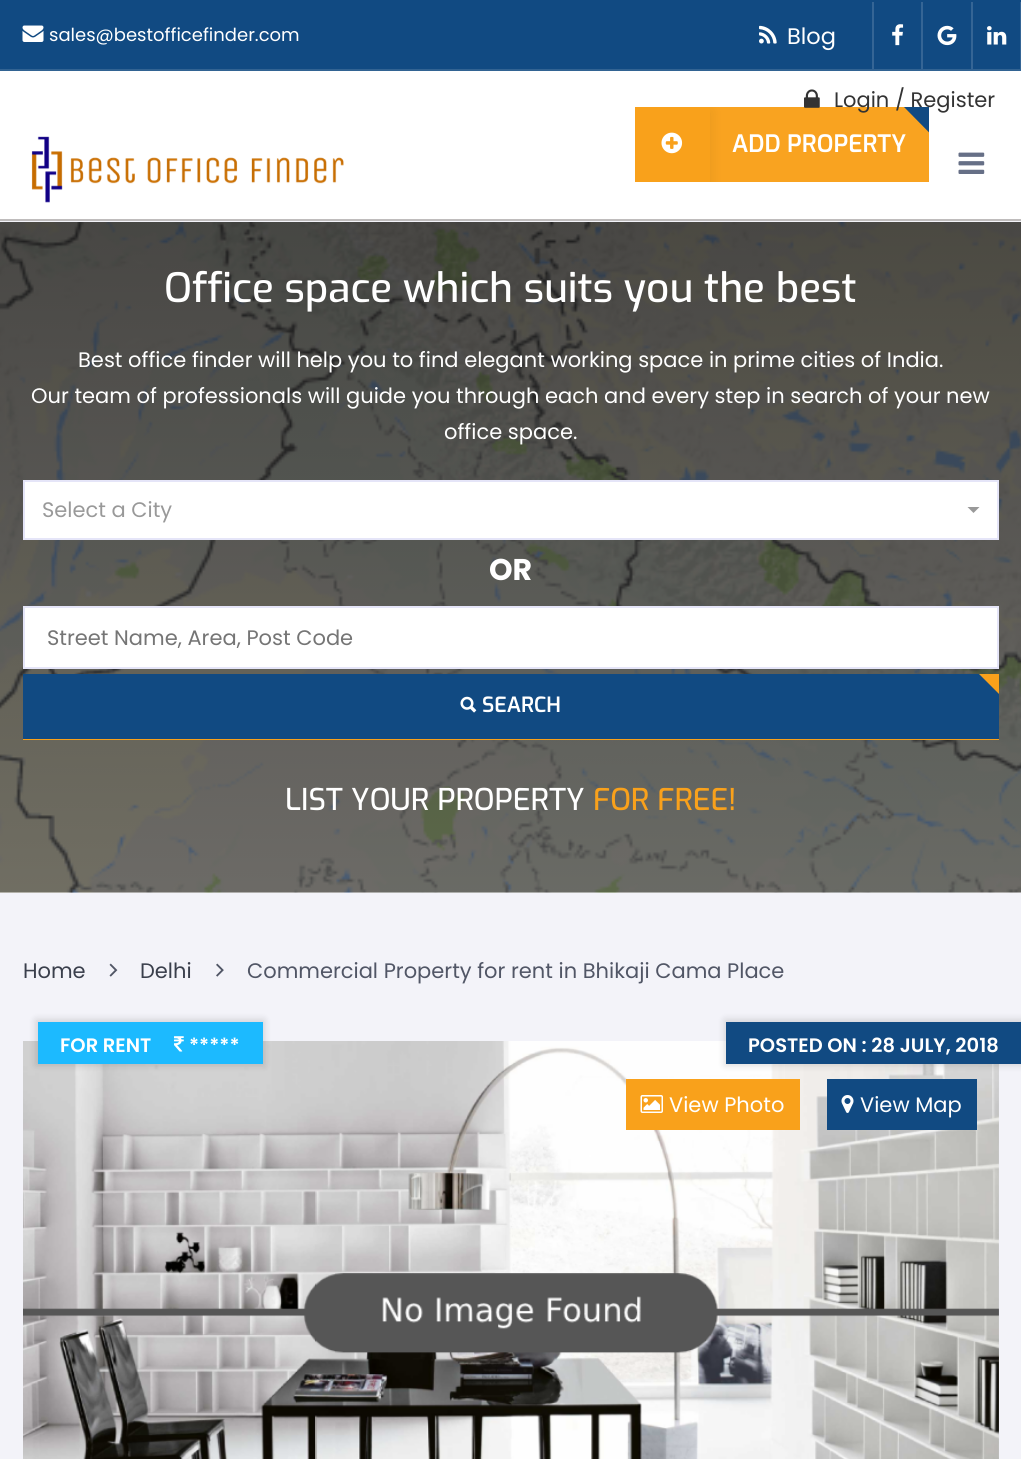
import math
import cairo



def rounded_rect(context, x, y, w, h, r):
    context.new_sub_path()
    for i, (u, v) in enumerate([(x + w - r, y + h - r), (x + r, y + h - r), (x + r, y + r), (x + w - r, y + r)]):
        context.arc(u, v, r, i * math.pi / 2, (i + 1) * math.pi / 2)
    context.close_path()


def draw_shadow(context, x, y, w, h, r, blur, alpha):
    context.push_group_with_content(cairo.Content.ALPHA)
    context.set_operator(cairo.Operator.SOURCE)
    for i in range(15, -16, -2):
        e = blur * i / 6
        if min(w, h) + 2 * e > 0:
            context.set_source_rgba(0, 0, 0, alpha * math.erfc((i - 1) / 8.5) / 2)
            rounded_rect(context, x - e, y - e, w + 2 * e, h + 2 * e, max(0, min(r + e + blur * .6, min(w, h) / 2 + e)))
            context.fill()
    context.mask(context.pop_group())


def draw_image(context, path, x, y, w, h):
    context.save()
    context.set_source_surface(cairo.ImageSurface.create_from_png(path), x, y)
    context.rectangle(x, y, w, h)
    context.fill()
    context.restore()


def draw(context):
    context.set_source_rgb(243 / 255, 243 / 255, 249 / 255)
    context.paint()
    context.set_source_rgb(1, 1, 1)
    context.rectangle(0, 71, 1021, 148)
    context.fill()
    context.set_source_rgb(17 / 255, 74 / 255, 130 / 255)
    context.rectangle(0, 0, 1021, 69)
    context.fill()
    context.set_source_rgb(50 / 255, 99 / 255, 146 / 255)
    context.rectangle(0, 69, 1021, 2)
    context.fill()
    draw_image(context, "images/1.png", 22, 25, 22, 17)
    draw_image(context, "images/2.png", 759, 25, 18, 19)
    context.set_source_rgb(53 / 255, 101 / 255, 149 / 255)
    context.rectangle(872, 2, 2, 67)
    context.fill()
    draw_image(context, "images/3.png", 892, 24, 12, 22)
    context.rectangle(921, 2, 2, 67)
    context.fill()
    draw_image(context, "images/4.png", 937, 25, 20, 21)
    context.rectangle(1020, 2, 1, 67)
    context.fill()
    context.rectangle(971, 2, 2, 67)
    context.fill()
    draw_image(context, "images/5.png", 987, 26, 20, 19)
    context.set_source_rgb(17 / 255, 74 / 255, 130 / 255)
    context.rectangle(904, 107, 25, 26)
    context.fill()
    context.save()
    context.rectangle(635, 107, 294, 75)
    context.clip()
    context.set_source_rgb(249 / 255, 163 / 255, 32 / 255)
    context.new_path()
    context.move_to(552, 106)
    context.line_to(903, 106)
    context.line_to(978, 182)
    context.line_to(627, 182)
    context.close_path()
    context.fill()
    context.restore()
    draw_image(context, "images/6.png", 804, 89, 16, 19)
    context.set_source_rgb(191 / 255, 188 / 255, 188 / 255)
    context.rectangle(0, 219, 1021, 2)
    context.fill()
    context.save()
    context.rectangle(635, 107, 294, 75)
    context.clip()
    context.set_source_rgb(0, 0, 0)
    draw_shadow(context, 635, 111, 75, 75, 0, 7.5, 0.08)
    context.restore()
    context.set_source_rgb(249 / 255, 161 / 255, 27 / 255)
    context.rectangle(635, 107, 75, 75)
    context.fill()
    draw_image(context, "images/7.png", 661, 132, 22, 22)
    draw_image(context, "images/8.png", 31, 136, 313, 67)
    draw_image(context, "images/9.png", 958, 152, 27, 22)
    draw_image(context, "images/10.png", 0, 222, 1021, 671)
    context.set_source_rgb(1, 1, 1)
    context.rectangle(24, 481, 974, 58)
    context.fill_preserve()
    context.set_source_rgb(229 / 255, 229 / 255, 248 / 255)
    context.stroke()
    context.set_source_rgb(153 / 255, 153 / 255, 153 / 255)
    context.new_path()
    context.move_to(967.5, 507)
    context.line_to(979.5, 507)
    context.line_to(973.5, 513)
    context.close_path()
    context.fill()
    context.set_source_rgb(1, 1, 1)
    context.rectangle(24, 607, 974, 61)
    context.fill_preserve()
    context.set_source_rgb(229 / 255, 229 / 255, 248 / 255)
    context.stroke()
    context.set_source_rgb(249 / 255, 161 / 255, 27 / 255)
    context.rectangle(23, 674, 976, 66)
    context.fill()
    context.save()
    context.rectangle(23, 674, 976, 66)
    context.clip()
    context.set_source_rgb(17 / 255, 74 / 255, 130 / 255)
    context.new_path()
    context.move_to(-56, 673)
    context.line_to(978, 673)
    context.line_to(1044, 739)
    context.line_to(10, 739)
    context.close_path()
    context.fill()
    context.restore()
    draw_image(context, "images/11.png", 460, 696, 17, 17)
    draw_image(context, "images/12.png", 109, 963, 9, 14)
    draw_image(context, "images/13.png", 216, 963, 8, 14)
    draw_image(context, "images/15.png", 23, 1041, 976, 418)
    context.set_source_rgb(0, 0, 0)
    draw_shadow(context, 36, 1020, 228, 45, 0, 4, 0.15)
    context.set_source_rgb(28 / 255, 186 / 255, 1)
    context.rectangle(38, 1022, 225, 42)
    context.fill()
    draw_image(context, "images/14.png", 174, 1036, 10, 16)
    context.set_source_rgb(0, 0, 0)
    draw_shadow(context, 725, 1020, 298, 45, 0, 4, 0.15)
    context.set_source_rgb(17 / 255, 74 / 255, 130 / 255)
    context.rectangle(726, 1022, 295, 42)
    context.fill()
    context.set_source_rgb(249 / 255, 161 / 255, 27 / 255)
    context.rectangle(626, 1079, 174, 51)
    context.fill()
    draw_image(context, "images/16.png", 640, 1095, 23, 18)
    context.set_source_rgb(17 / 255, 74 / 255, 130 / 255)
    context.rectangle(827, 1079, 150, 51)
    context.fill()
    draw_image(context, "images/17.png", 841, 1095, 13, 18)
    context.select_font_face("Poppins")
    context.set_font_size(18)
    context.set_source_rgb(1, 1, 1)
    context.move_to(49, 41)
    context.show_text("sales@bestofficefinder.com")
    context.set_font_size(22.5)
    context.move_to(787, 44)
    context.show_text("Blog")
    context.set_font_size(21)
    context.set_source_rgb(51 / 255, 51 / 255, 51 / 255)
    context.move_to(834, 107)
    context.show_text("Login / Register")
    context.select_font_face("Exo SemiBold")
    context.set_font_size(24)
    context.set_source_rgb(1, 1, 1)
    context.move_to(732, 152)
    context.show_text("ADD PROPERTY")
    context.select_font_face("Exo Medium")
    context.set_font_size(40.5)
    context.move_to(164, 302)
    context.show_text("Office space which suits you the best")
    context.select_font_face("Poppins")
    context.set_font_size(21)
    context.move_to(78, 367)
    context.show_text("Best office finder will help you to find elegant working space in prime cities of India.")
    context.move_to(31, 403)
    context.show_text("Our team of professionals will guide you through each and every step in search of your new")
    context.move_to(444, 439)
    context.show_text("office space.")
    context.set_source_rgb(153 / 255, 153 / 255, 153 / 255)
    context.move_to(42, 517)
    context.show_text("Select a City")
    context.select_font_face("Poppins", cairo.FontSlant.NORMAL, cairo.FontWeight.BOLD)
    context.set_font_size(30)
    context.set_source_rgb(1, 1, 1)
    context.move_to(489, 580)
    context.show_text("OR")
    context.select_font_face("Poppins")
    context.set_font_size(21)
    context.set_source_rgb(117 / 255, 117 / 255, 117 / 255)
    context.move_to(47, 645)
    context.show_text("Street Name, Area, Post Code")
    context.select_font_face("Exo SemiBold")
    context.set_source_rgb(1, 1, 1)
    context.move_to(482, 712)
    context.show_text("SEARCH")
    context.select_font_face("Exo Medium")
    context.set_font_size(30)
    context.move_to(285, 810)
    context.show_text("LIST YOUR PROPERTY")
    context.set_source_rgb(249 / 255, 161 / 255, 27 / 255)
    context.move_to(593, 810)
    context.show_text("FOR FREE!")
    context.select_font_face("Poppins")
    context.set_font_size(21)
    context.set_source_rgb(58 / 255, 63 / 255, 76 / 255)
    context.move_to(23, 978)
    context.show_text("Home")
    context.move_to(140, 978)
    context.show_text("Delhi")
    context.set_source_rgb(81 / 255, 86 / 255, 102 / 255)
    context.move_to(247, 978)
    context.show_text("Commercial Property for rent in Bhikaji Cama Place")
    context.select_font_face("Poppins SemiBold")
    context.set_font_size(19.5)
    context.set_source_rgb(1, 1, 1)
    context.move_to(60, 1052)
    context.show_text("FOR RENT")
    context.move_to(189, 1052)
    context.show_text("*****")
    context.move_to(748, 1052)
    context.show_text("POSTED ON : 28 JULY, 2018")
    context.select_font_face("Poppins")
    context.set_font_size(21)
    context.move_to(669, 1112)
    context.show_text("View Photo")
    context.move_to(860, 1112)
    context.show_text("View Map")


surface = cairo.ImageSurface(cairo.Format.RGB24, 1021, 1459)
context = cairo.Context(surface)
options = cairo.FontOptions()
options.set_hint_metrics(cairo.HintMetrics.OFF)
options.set_hint_style(cairo.HintStyle.NONE)
context.set_font_options(options)
context.set_miter_limit(4)
draw(context)
surface.write_to_png("out.png")
